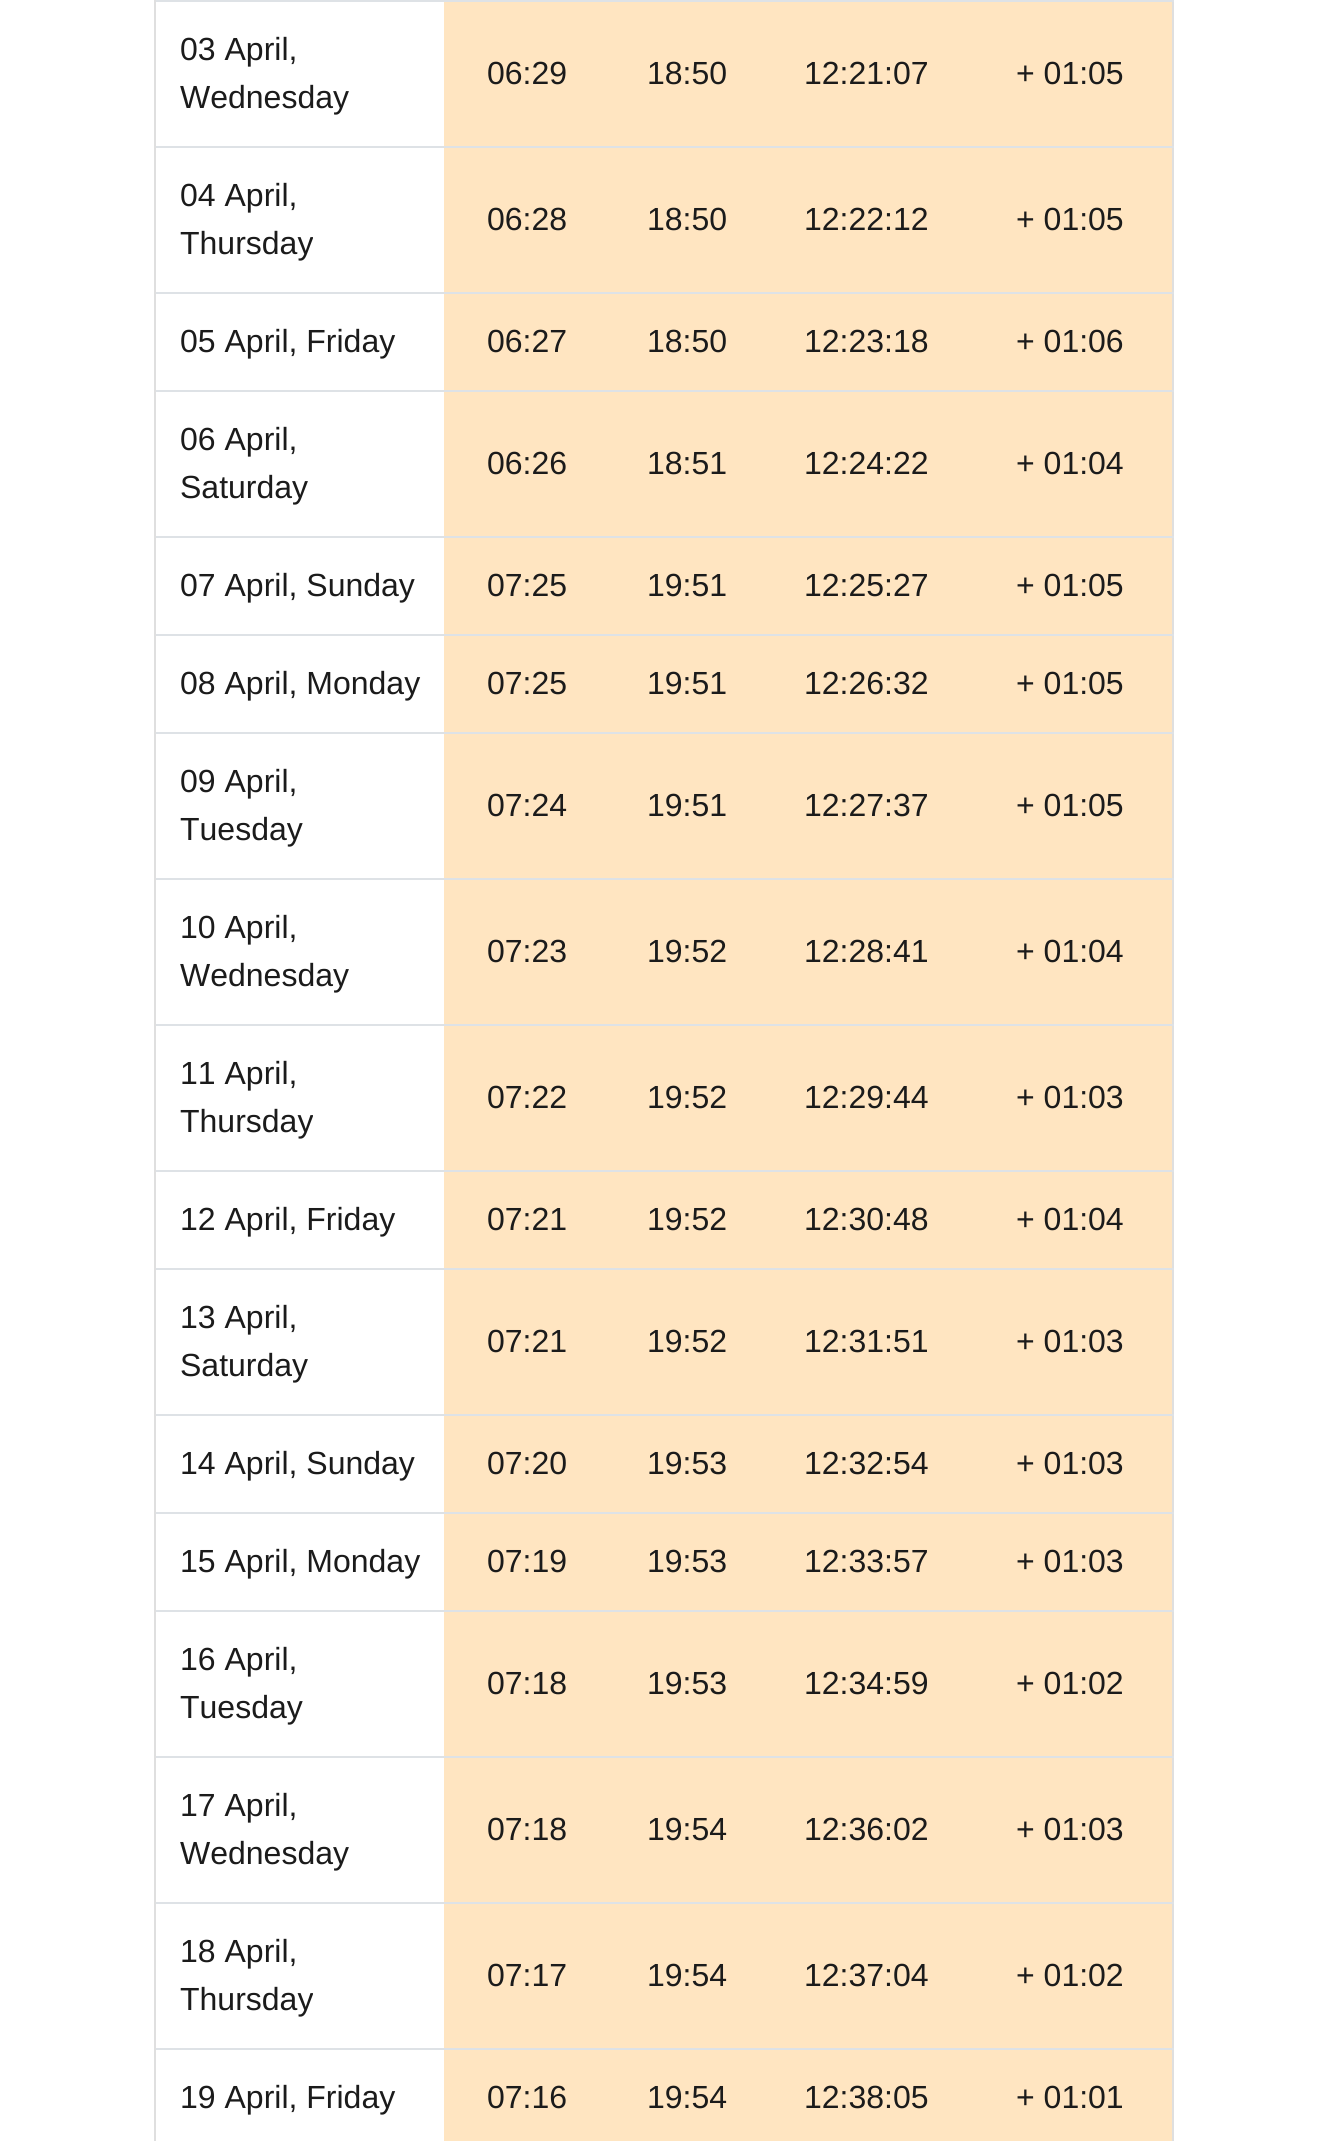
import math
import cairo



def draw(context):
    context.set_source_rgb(1, 1, 1)
    context.paint()
    context.rectangle(155, -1, 1018, 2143)
    context.set_source_rgb(223 / 255, 223 / 255, 223 / 255)
    context.stroke()
    context.set_source_rgb(1, 229 / 255, 193 / 255)
    context.rectangle(444, 2, 728, 2139)
    context.fill()
    context.set_source_rgb(222 / 255, 226 / 255, 230 / 255)
    context.rectangle(156, 0, 1018, 2)
    context.fill()
    context.rectangle(156, 146, 1018, 2)
    context.fill()
    context.rectangle(156, 292, 1018, 2)
    context.fill()
    context.rectangle(156, 390, 1018, 2)
    context.fill()
    context.rectangle(156, 536, 1018, 2)
    context.fill()
    context.rectangle(156, 634, 1018, 2)
    context.fill()
    context.rectangle(156, 732, 1018, 2)
    context.fill()
    context.rectangle(156, 878, 1018, 2)
    context.fill()
    context.rectangle(156, 1024, 1018, 2)
    context.fill()
    context.rectangle(156, 1170, 1018, 2)
    context.fill()
    context.rectangle(156, 1268, 1018, 2)
    context.fill()
    context.rectangle(156, 1414, 1018, 2)
    context.fill()
    context.rectangle(156, 1512, 1018, 2)
    context.fill()
    context.rectangle(156, 1610, 1018, 2)
    context.fill()
    context.rectangle(156, 1756, 1018, 2)
    context.fill()
    context.rectangle(156, 1902, 1018, 2)
    context.fill()
    context.rectangle(156, 2048, 1018, 2)
    context.fill()
    context.select_font_face("Liberation Sans")
    context.set_font_size(32)
    context.set_source_rgb(27 / 255, 27 / 255, 27 / 255)
    context.move_to(180, 60)
    context.show_text("03 April,")
    context.move_to(180, 108)
    context.show_text("Wednesday")
    context.move_to(487, 84)
    context.show_text("06:29")
    context.move_to(647, 84)
    context.show_text("18:50")
    context.move_to(804, 84)
    context.show_text("12:21:07")
    context.move_to(1016, 84)
    context.show_text("+ 01:05")
    context.move_to(180, 206)
    context.show_text("04 April,")
    context.move_to(180, 254)
    context.show_text("Thursday")
    context.move_to(487, 230)
    context.show_text("06:28")
    context.move_to(647, 230)
    context.show_text("18:50")
    context.move_to(804, 230)
    context.show_text("12:22:12")
    context.move_to(1016, 230)
    context.show_text("+ 01:05")
    context.move_to(180, 352)
    context.show_text("05 April, Friday")
    context.move_to(487, 352)
    context.show_text("06:27")
    context.move_to(647, 352)
    context.show_text("18:50")
    context.move_to(804, 352)
    context.show_text("12:23:18")
    context.move_to(1016, 352)
    context.show_text("+ 01:06")
    context.move_to(180, 450)
    context.show_text("06 April,")
    context.move_to(180, 498)
    context.show_text("Saturday")
    context.move_to(487, 474)
    context.show_text("06:26")
    context.move_to(647, 474)
    context.show_text("18:51")
    context.move_to(804, 474)
    context.show_text("12:24:22")
    context.move_to(1016, 474)
    context.show_text("+ 01:04")
    context.move_to(180, 596)
    context.show_text("07 April, Sunday")
    context.move_to(487, 596)
    context.show_text("07:25")
    context.move_to(647, 596)
    context.show_text("19:51")
    context.move_to(804, 596)
    context.show_text("12:25:27")
    context.move_to(1016, 596)
    context.show_text("+ 01:05")
    context.move_to(180, 694)
    context.show_text("08 April, Monday")
    context.move_to(487, 694)
    context.show_text("07:25")
    context.move_to(647, 694)
    context.show_text("19:51")
    context.move_to(804, 694)
    context.show_text("12:26:32")
    context.move_to(1016, 694)
    context.show_text("+ 01:05")
    context.move_to(180, 792)
    context.show_text("09 April,")
    context.move_to(180, 840)
    context.show_text("Tuesday")
    context.move_to(487, 816)
    context.show_text("07:24")
    context.move_to(647, 816)
    context.show_text("19:51")
    context.move_to(804, 816)
    context.show_text("12:27:37")
    context.move_to(1016, 816)
    context.show_text("+ 01:05")
    context.move_to(180, 938)
    context.show_text("10 April,")
    context.move_to(180, 986)
    context.show_text("Wednesday")
    context.move_to(487, 962)
    context.show_text("07:23")
    context.move_to(647, 962)
    context.show_text("19:52")
    context.move_to(804, 962)
    context.show_text("12:28:41")
    context.move_to(1016, 962)
    context.show_text("+ 01:04")
    context.move_to(180, 1084)
    context.show_text("11 April,")
    context.move_to(180, 1132)
    context.show_text("Thursday")
    context.move_to(487, 1108)
    context.show_text("07:22")
    context.move_to(647, 1108)
    context.show_text("19:52")
    context.move_to(804, 1108)
    context.show_text("12:29:44")
    context.move_to(1016, 1108)
    context.show_text("+ 01:03")
    context.move_to(180, 1230)
    context.show_text("12 April, Friday")
    context.move_to(487, 1230)
    context.show_text("07:21")
    context.move_to(647, 1230)
    context.show_text("19:52")
    context.move_to(804, 1230)
    context.show_text("12:30:48")
    context.move_to(1016, 1230)
    context.show_text("+ 01:04")
    context.move_to(180, 1328)
    context.show_text("13 April,")
    context.move_to(180, 1376)
    context.show_text("Saturday")
    context.move_to(487, 1352)
    context.show_text("07:21")
    context.move_to(647, 1352)
    context.show_text("19:52")
    context.move_to(804, 1352)
    context.show_text("12:31:51")
    context.move_to(1016, 1352)
    context.show_text("+ 01:03")
    context.move_to(180, 1474)
    context.show_text("14 April, Sunday")
    context.move_to(487, 1474)
    context.show_text("07:20")
    context.move_to(647, 1474)
    context.show_text("19:53")
    context.move_to(804, 1474)
    context.show_text("12:32:54")
    context.move_to(1016, 1474)
    context.show_text("+ 01:03")
    context.move_to(180, 1572)
    context.show_text("15 April, Monday")
    context.move_to(487, 1572)
    context.show_text("07:19")
    context.move_to(647, 1572)
    context.show_text("19:53")
    context.move_to(804, 1572)
    context.show_text("12:33:57")
    context.move_to(1016, 1572)
    context.show_text("+ 01:03")
    context.move_to(180, 1670)
    context.show_text("16 April,")
    context.move_to(180, 1718)
    context.show_text("Tuesday")
    context.move_to(487, 1694)
    context.show_text("07:18")
    context.move_to(647, 1694)
    context.show_text("19:53")
    context.move_to(804, 1694)
    context.show_text("12:34:59")
    context.move_to(1016, 1694)
    context.show_text("+ 01:02")
    context.move_to(180, 1816)
    context.show_text("17 April,")
    context.move_to(180, 1864)
    context.show_text("Wednesday")
    context.move_to(487, 1840)
    context.show_text("07:18")
    context.move_to(647, 1840)
    context.show_text("19:54")
    context.move_to(804, 1840)
    context.show_text("12:36:02")
    context.move_to(1016, 1840)
    context.show_text("+ 01:03")
    context.move_to(180, 1962)
    context.show_text("18 April,")
    context.move_to(180, 2010)
    context.show_text("Thursday")
    context.move_to(487, 1986)
    context.show_text("07:17")
    context.move_to(647, 1986)
    context.show_text("19:54")
    context.move_to(804, 1986)
    context.show_text("12:37:04")
    context.move_to(1016, 1986)
    context.show_text("+ 01:02")
    context.move_to(180, 2108)
    context.show_text("19 April, Friday")
    context.move_to(487, 2108)
    context.show_text("07:16")
    context.move_to(647, 2108)
    context.show_text("19:54")
    context.move_to(804, 2108)
    context.show_text("12:38:05")
    context.move_to(1016, 2108)
    context.show_text("+ 01:01")


surface = cairo.ImageSurface(cairo.Format.RGB24, 1327, 2141)
context = cairo.Context(surface)
options = cairo.FontOptions()
options.set_hint_metrics(cairo.HintMetrics.OFF)
options.set_hint_style(cairo.HintStyle.NONE)
context.set_font_options(options)
context.set_miter_limit(4)
draw(context)
surface.write_to_png("out.png")
